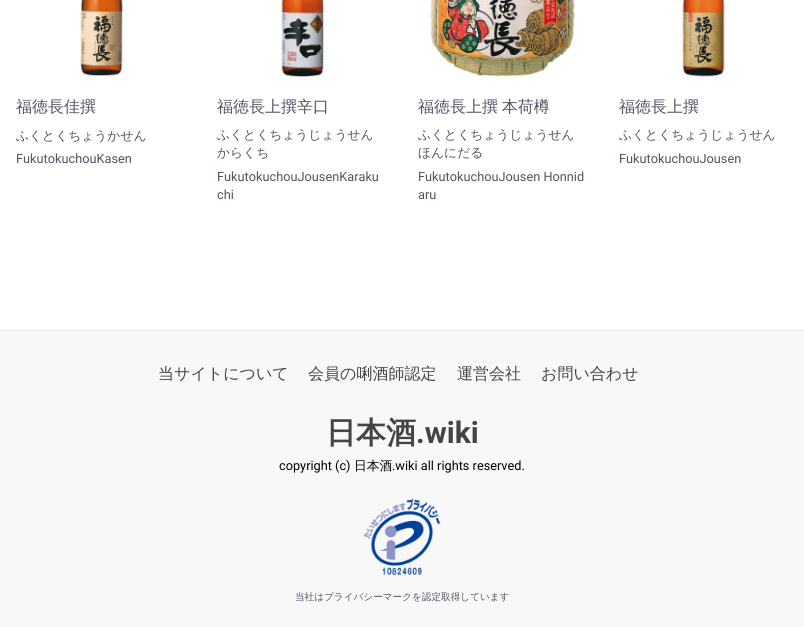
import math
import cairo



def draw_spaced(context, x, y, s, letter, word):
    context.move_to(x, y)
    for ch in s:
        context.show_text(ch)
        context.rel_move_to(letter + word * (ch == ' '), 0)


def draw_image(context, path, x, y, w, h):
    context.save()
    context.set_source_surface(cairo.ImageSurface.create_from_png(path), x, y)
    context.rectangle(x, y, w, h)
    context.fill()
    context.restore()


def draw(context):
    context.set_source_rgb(1, 1, 1)
    context.paint()
    draw_image(context, "images/1.png", 80, 0, 43, 76)
    draw_image(context, "images/2.png", 281, 0, 43, 78)
    draw_image(context, "images/3.png", 430, 0, 145, 77)
    draw_image(context, "images/4.png", 682, 0, 43, 77)
    context.set_source_rgb(248 / 255, 248 / 255, 248 / 255)
    context.rectangle(0, 331, 804, 296)
    context.fill()
    context.set_source_rgb(232 / 255, 232 / 255, 232 / 255)
    context.rectangle(0, 330, 804, 1)
    context.fill()
    draw_image(context, "images/5.png", 363, 498, 78, 78)
    context.select_font_face("WenQuanYi Zen Hei Medium")
    context.set_font_size(16)
    context.set_source_rgb(82 / 255, 82 / 255, 99 / 255)
    context.move_to(16, 112)
    context.show_text("福徳長佳撰")
    context.set_font_size(12.75)
    context.move_to(16, 140)
    context.show_text("ふくとくちょうかせん")
    context.select_font_face("Roboto")
    context.move_to(16, 163)
    context.show_text("FukutokuchouKasen")
    context.select_font_face("WenQuanYi Zen Hei Medium")
    context.set_font_size(16)
    context.move_to(217, 112)
    context.show_text("福徳長上撰辛口")
    context.set_font_size(12.75)
    context.move_to(217, 139)
    context.show_text("ふくとくちょうじょうせん")
    context.move_to(217, 157)
    context.show_text("からくち")
    context.select_font_face("Roboto")
    context.move_to(217, 181)
    context.show_text("FukutokuchouJousenKaraku")
    context.move_to(217, 199)
    context.show_text("chi")
    context.select_font_face("WenQuanYi Zen Hei Medium")
    context.set_font_size(16)
    draw_spaced(context, 418, 112, "福徳長上撰 本荷樽", 0, -1)
    context.set_font_size(12.75)
    context.move_to(418, 139)
    context.show_text("ふくとくちょうじょうせん")
    context.move_to(418, 157)
    context.show_text("ほんにだる")
    context.select_font_face("Roboto")
    context.move_to(418, 181)
    context.show_text("FukutokuchouJousen Honnid")
    context.move_to(418, 199)
    context.show_text("aru")
    context.select_font_face("WenQuanYi Zen Hei Medium")
    context.set_font_size(16)
    context.move_to(619, 112)
    context.show_text("福徳長上撰")
    context.set_font_size(12.75)
    context.move_to(619, 139)
    context.show_text("ふくとくちょうじょうせん")
    context.select_font_face("Roboto")
    context.move_to(619, 163)
    context.show_text("FukutokuchouJousen")
    context.select_font_face("WenQuanYi Zen Hei Medium")
    context.set_font_size(16)
    context.set_source_rgb(68 / 255, 68 / 255, 68 / 255)
    context.move_to(158, 379)
    context.show_text("当サイトについて")
    context.move_to(308, 379)
    context.show_text("会員の唎酒師認定")
    context.move_to(457, 379)
    context.show_text("運営会社")
    context.move_to(541, 379)
    context.show_text("お問い合わせ")
    context.select_font_face("WenQuanYi Zen Hei", cairo.FontSlant.NORMAL, cairo.FontWeight.BOLD)
    context.set_font_size(30)
    context.move_to(326, 443)
    context.show_text("日本酒")
    context.select_font_face("Roboto", cairo.FontSlant.NORMAL, cairo.FontWeight.BOLD)
    context.move_to(416, 443)
    context.show_text(".wiki")
    context.select_font_face("Roboto")
    context.set_font_size(12.75)
    context.set_source_rgb(0, 0, 0)
    context.move_to(279, 470)
    context.show_text("copyright (c)")
    context.select_font_face("WenQuanYi Zen Hei Medium")
    context.move_to(354, 470)
    context.show_text("日本酒")
    context.select_font_face("Roboto")
    context.move_to(392, 470)
    context.show_text(".wiki all rights reserved.")
    context.select_font_face("WenQuanYi Zen Hei Medium")
    context.set_font_size(9.6)
    context.set_source_rgb(82 / 255, 82 / 255, 99 / 255)
    context.move_to(295, 600)
    context.show_text("当社はプライバシーマークを認定取得しています")


surface = cairo.ImageSurface(cairo.Format.RGB24, 804, 627)
context = cairo.Context(surface)
options = cairo.FontOptions()
options.set_hint_metrics(cairo.HintMetrics.OFF)
options.set_hint_style(cairo.HintStyle.NONE)
context.set_font_options(options)
context.set_miter_limit(4)
draw(context)
surface.write_to_png("out.png")
